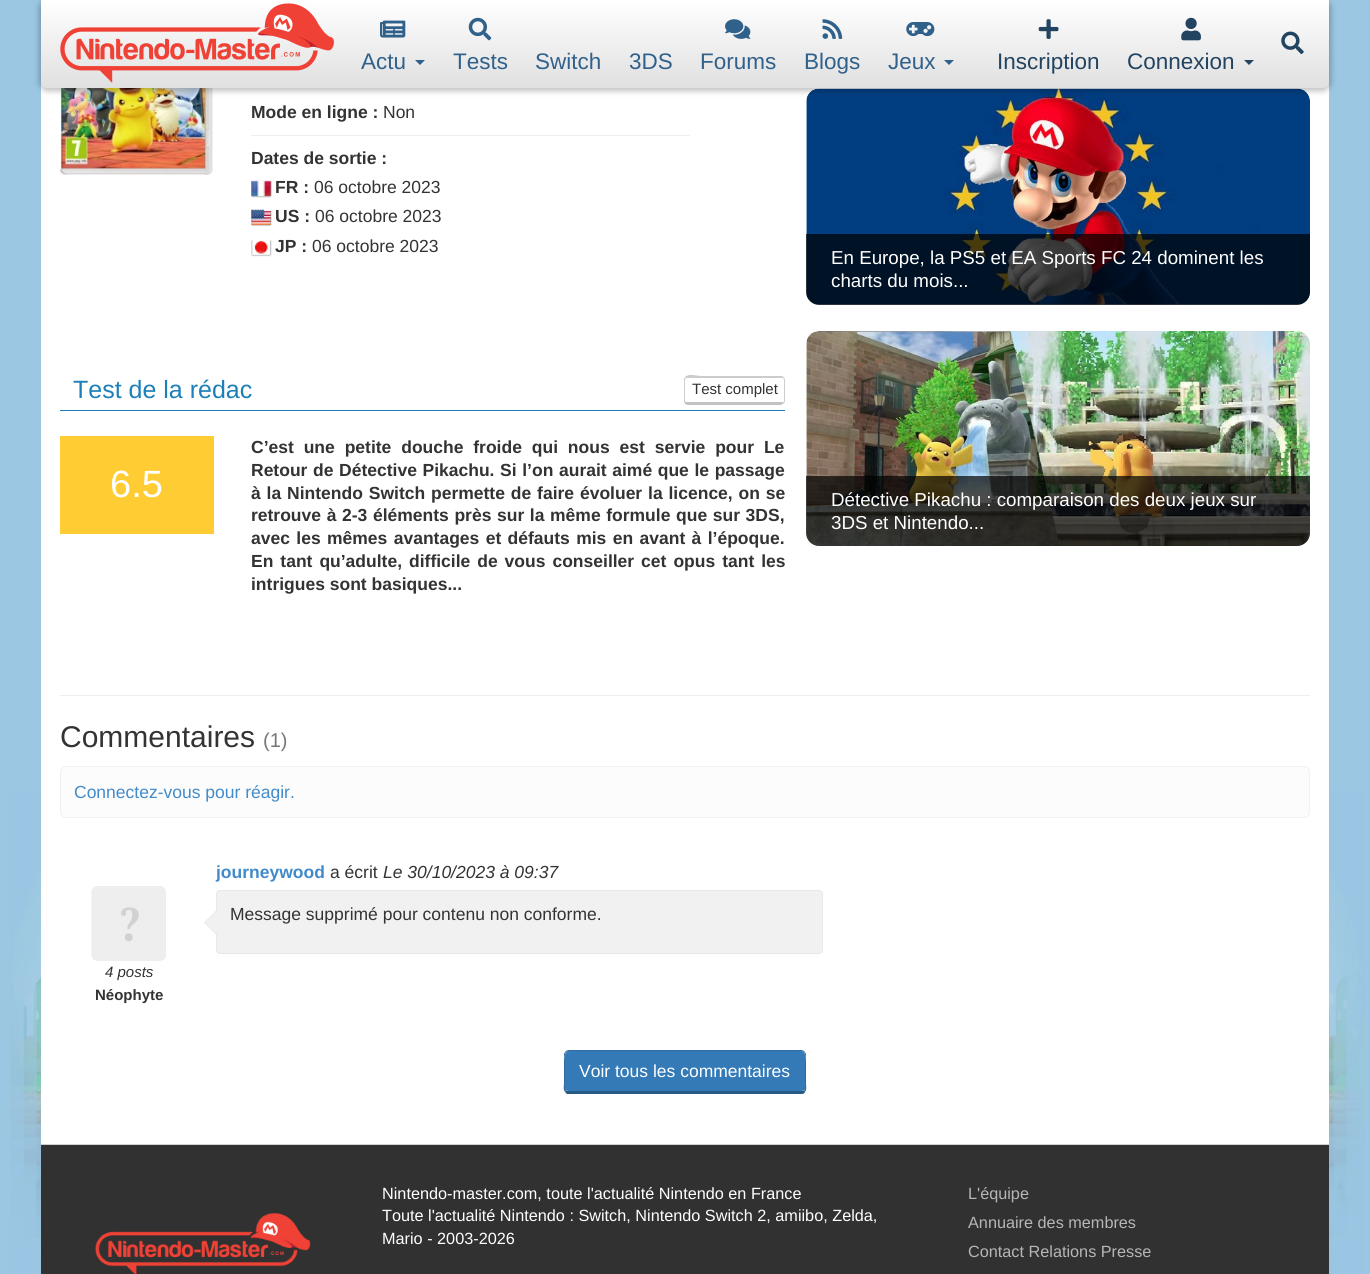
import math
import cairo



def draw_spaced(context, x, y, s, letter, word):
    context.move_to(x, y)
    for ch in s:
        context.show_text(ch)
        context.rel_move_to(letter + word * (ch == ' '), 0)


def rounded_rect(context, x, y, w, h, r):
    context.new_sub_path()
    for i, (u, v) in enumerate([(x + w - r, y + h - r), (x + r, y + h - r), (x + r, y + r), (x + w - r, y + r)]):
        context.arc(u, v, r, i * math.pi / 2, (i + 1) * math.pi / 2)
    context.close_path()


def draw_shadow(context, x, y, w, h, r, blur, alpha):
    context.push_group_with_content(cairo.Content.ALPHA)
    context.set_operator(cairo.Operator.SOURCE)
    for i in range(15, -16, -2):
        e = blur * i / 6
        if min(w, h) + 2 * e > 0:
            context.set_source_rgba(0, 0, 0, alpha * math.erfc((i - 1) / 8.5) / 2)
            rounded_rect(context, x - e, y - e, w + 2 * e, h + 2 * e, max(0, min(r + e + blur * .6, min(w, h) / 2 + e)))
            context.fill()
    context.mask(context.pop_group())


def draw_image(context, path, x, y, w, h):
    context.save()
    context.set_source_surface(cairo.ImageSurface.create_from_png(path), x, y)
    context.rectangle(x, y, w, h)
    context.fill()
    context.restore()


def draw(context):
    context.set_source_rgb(155 / 255, 199 / 255, 226 / 255)
    context.paint()
    draw_image(context, "images/1.png", 10, 790, 1355, 484)
    context.set_source_rgb(1, 1, 1)
    context.rectangle(41, 82, 1288, 1062)
    context.fill()
    draw_image(context, "images/11.png", 60, 88, 153, 87)
    draw_image(context, "images/15.png", 806, 88, 504, 217)
    context.set_source_rgb(0, 0, 0)
    draw_shadow(context, 39, -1, 1292, 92, 9, 3, 0.25)
    gradient = cairo.LinearGradient(685, 0, 685, 88)
    gradient.add_color_stop_rgba(0, 1, 1, 1, 1)
    gradient.add_color_stop_rgba(1, 224 / 255, 224 / 255, 224 / 255, 1)
    context.set_source(gradient)
    context.new_path()
    context.move_to(41, 0)
    context.line_to(1329, 0)
    context.line_to(1329, 82)
    context.curve_to(1329, 85.5, 1326.5, 88, 1323, 88)
    context.line_to(47, 88)
    context.curve_to(43.5, 88, 41, 85.5, 41, 82)
    context.close_path()
    context.fill()
    draw_image(context, "images/2.png", 60, 3, 274, 80)
    draw_image(context, "images/3.png", 380, 20, 26, 18)
    context.set_source_rgb(48 / 255, 97 / 255, 139 / 255)
    context.new_path()
    context.move_to(415, 60)
    context.line_to(425, 60)
    context.line_to(420, 65)
    context.close_path()
    context.fill()
    draw_image(context, "images/4.png", 468, 17, 24, 24)
    draw_image(context, "images/5.png", 725, 19, 26, 20)
    draw_image(context, "images/6.png", 822, 19, 21, 20)
    draw_image(context, "images/7.png", 906, 22, 29, 15)
    context.new_path()
    context.move_to(944, 60)
    context.line_to(954, 60)
    context.line_to(949, 65)
    context.close_path()
    context.fill()
    draw_image(context, "images/8.png", 1281, 31, 23, 23)
    draw_image(context, "images/9.png", 1038, 19, 21, 20)
    draw_image(context, "images/10.png", 1181, 17, 20, 24)
    context.set_source_rgb(34 / 255, 68 / 255, 97 / 255)
    context.new_path()
    context.move_to(1244, 60)
    context.line_to(1254, 60)
    context.line_to(1249, 65)
    context.close_path()
    context.fill()
    context.set_source_rgb(238 / 255, 238 / 255, 238 / 255)
    context.rectangle(251, 135, 439, 1)
    context.fill()
    draw_image(context, "images/12.png", 251, 180, 21, 18)
    draw_image(context, "images/13.png", 251, 209, 21, 18)
    draw_image(context, "images/14.png", 251, 239, 21, 18)
    context.set_source_rgb(28 / 255, 127 / 255, 184 / 255)
    context.rectangle(60, 410, 725, 1)
    context.fill()
    context.set_source_rgb(204 / 255, 204 / 255, 204 / 255)
    context.new_path()
    context.move_to(688, 378)
    context.line_to(686, 378)
    context.line_to(685, 377)
    context.curve_to(689, 373, 696, 376, 702, 376)
    context.line_to(782, 376)
    context.line_to(784, 377)
    context.line_to(783, 378)
    context.line_to(781, 378)
    context.close_path()
    context.fill()
    context.new_path()
    context.move_to(785, 401)
    context.line_to(785, 380)
    context.curve_to(785, 379, 784.5, 378, 784, 377.5)
    context.line_to(783, 378.5)
    context.line_to(784, 379.5)
    context.line_to(784, 401.5)
    context.line_to(783.5, 402)
    context.line_to(784, 403.5)
    context.curve_to(784.5, 402.5, 785, 402, 785, 401)
    context.close_path()
    context.fill()
    context.set_source_rgb(194 / 255, 194 / 255, 194 / 255)
    context.new_path()
    context.move_to(688, 405)
    context.line_to(781, 405)
    context.line_to(784, 403)
    context.line_to(783, 402)
    context.line_to(685, 402)
    context.line_to(685, 403)
    context.curve_to(685, 404, 686, 405, 688, 405)
    context.close_path()
    context.fill()
    context.set_source_rgb(204 / 255, 204 / 255, 204 / 255)
    context.new_path()
    context.move_to(684.5, 403.5)
    context.curve_to(684, 402.5, 684, 402, 684, 401)
    context.line_to(684, 380)
    context.curve_to(684, 379, 684, 378, 685, 377.5)
    context.line_to(686, 378.5)
    context.curve_to(684.5, 379.5, 685, 382, 685, 383.5)
    context.line_to(685, 401)
    context.line_to(685.5, 401.5)
    context.close_path()
    context.fill()
    context.set_source_rgb(1, 204 / 255, 51 / 255)
    context.rectangle(60, 436, 154, 98)
    context.fill()
    context.set_source_rgba(0, 0, 0, 0.7)
    context.new_path()
    context.move_to(806, 234)
    context.line_to(1310, 234)
    context.line_to(1310, 292)
    context.curve_to(1310, 299, 1304, 305, 1297, 305)
    context.line_to(819, 305)
    context.curve_to(812, 305, 806, 299, 806, 292)
    context.close_path()
    context.fill()
    draw_image(context, "images/16.png", 806, 331, 504, 215)
    context.new_path()
    context.move_to(806, 476)
    context.line_to(1310, 476)
    context.line_to(1310, 533)
    context.curve_to(1310, 540, 1304, 546, 1297, 546)
    context.line_to(819, 546)
    context.curve_to(812, 546, 806, 540, 806, 533)
    context.close_path()
    context.fill()
    context.set_source_rgb(238 / 255, 238 / 255, 238 / 255)
    context.rectangle(60, 695, 1250, 1)
    context.fill()
    context.set_source_rgb(252 / 255, 252 / 255, 252 / 255)
    rounded_rect(context, 60.5, 766.5, 1249, 51, 5.5)
    context.fill_preserve()
    context.set_source_rgb(241 / 255, 241 / 255, 241 / 255)
    context.set_line_width(1)
    context.stroke()
    rounded_rect(context, 216.5, 890.5, 606, 63, 3.5)
    context.fill_preserve()
    context.set_source_rgb(232 / 255, 232 / 255, 232 / 255)
    context.stroke()
    context.new_path()
    context.move_to(217.5, 909)
    context.line_to(217.5, 936)
    context.line_to(204, 922.5)
    context.close_path()
    context.fill()
    context.set_source_rgb(241 / 255, 241 / 255, 241 / 255)
    context.new_path()
    context.move_to(217.5, 910)
    context.line_to(217.5, 935)
    context.line_to(205, 922.5)
    context.close_path()
    context.fill()
    draw_image(context, "images/17.png", 91, 886, 75, 75)
    context.set_source_rgb(51 / 255, 122 / 255, 183 / 255)
    context.new_path()
    context.move_to(569, 1051)
    context.line_to(801, 1051)
    context.curve_to(803, 1051, 805, 1053, 805, 1055)
    context.line_to(805, 1089)
    context.curve_to(805, 1090, 803, 1091, 801, 1091)
    context.line_to(569, 1091)
    context.curve_to(567, 1091, 565, 1090, 565, 1089)
    context.line_to(565, 1055)
    context.curve_to(565, 1053, 567, 1051, 569, 1051)
    context.close_path()
    context.fill()
    context.set_source_rgb(46 / 255, 109 / 255, 164 / 255)
    context.new_path()
    context.move_to(569, 1050)
    context.curve_to(567, 1050, 566, 1051, 565, 1052)
    context.line_to(566, 1052)
    context.curve_to(567, 1052, 568, 1051, 569, 1051)
    context.line_to(801, 1051)
    context.curve_to(802, 1051, 803, 1052, 804, 1052)
    context.line_to(805, 1052)
    context.curve_to(804, 1051, 803, 1050, 801, 1050)
    context.close_path()
    context.fill()
    context.new_path()
    context.move_to(805, 1052)
    context.line_to(806, 1054)
    context.line_to(806, 1083)
    context.curve_to(806, 1085, 807, 1090, 805, 1092)
    context.line_to(804, 1090)
    context.line_to(805, 1089)
    context.line_to(805, 1061)
    context.curve_to(805, 1058, 806, 1055, 804, 1052)
    context.close_path()
    context.fill()
    context.set_source_rgb(39 / 255, 90 / 255, 133 / 255)
    context.new_path()
    context.move_to(567, 1094)
    context.line_to(565, 1092)
    context.line_to(566, 1090)
    context.curve_to(566, 1091, 568, 1091, 569, 1091)
    context.line_to(801, 1091)
    context.curve_to(802, 1091, 804, 1091, 804, 1090)
    context.line_to(805, 1092)
    context.curve_to(805, 1093, 804, 1093, 803, 1094)
    context.close_path()
    context.fill()
    context.set_source_rgb(46 / 255, 109 / 255, 164 / 255)
    context.new_path()
    context.move_to(565, 1052)
    context.line_to(564, 1054)
    context.line_to(564, 1083)
    context.curve_to(564, 1085, 563, 1090, 565, 1092)
    context.line_to(566, 1090)
    context.line_to(565, 1089)
    context.line_to(565, 1061)
    context.curve_to(565, 1058, 564, 1055, 566, 1052)
    context.close_path()
    context.fill()
    context.set_source_rgb(49 / 255, 49 / 255, 49 / 255)
    context.rectangle(41, 1145, 1288, 129)
    context.fill()
    context.set_source_rgb(208 / 255, 208 / 255, 208 / 255)
    context.rectangle(41, 1144, 1288, 1)
    context.fill()
    draw_image(context, "images/18.png", 95, 1213, 216, 61)
    context.select_font_face("Liberation Sans")
    context.set_font_size(22.5)
    context.set_source_rgb(48 / 255, 97 / 255, 139 / 255)
    context.move_to(361, 69)
    context.show_text("Actu")
    context.move_to(453, 69)
    context.show_text("Tests")
    context.move_to(535, 69)
    context.show_text("Switch")
    context.move_to(629, 69)
    context.show_text("3DS")
    context.move_to(700, 69)
    context.show_text("Forums")
    context.move_to(804, 69)
    context.show_text("Blogs")
    context.move_to(888, 69)
    context.show_text("Jeux")
    context.set_source_rgb(34 / 255, 68 / 255, 97 / 255)
    context.move_to(997, 69)
    context.show_text("Inscription")
    context.move_to(1127, 69)
    context.show_text("Connexion")
    context.select_font_face("Liberation Sans", cairo.FontSlant.NORMAL, cairo.FontWeight.BOLD)
    context.set_font_size(17.5)
    context.set_source_rgb(51 / 255, 51 / 255, 51 / 255)
    context.move_to(251, 118)
    context.show_text("Mode en ligne :")
    context.select_font_face("Liberation Sans")
    context.move_to(383, 118)
    context.show_text("Non")
    context.select_font_face("Liberation Sans", cairo.FontSlant.NORMAL, cairo.FontWeight.BOLD)
    context.move_to(251, 164)
    context.show_text("Dates de sortie :")
    context.move_to(275, 193)
    context.show_text("FR :")
    context.select_font_face("Liberation Sans")
    context.move_to(314, 193)
    context.show_text("06 octobre 2023")
    context.select_font_face("Liberation Sans", cairo.FontSlant.NORMAL, cairo.FontWeight.BOLD)
    context.move_to(275, 222)
    context.show_text("US :")
    context.select_font_face("Liberation Sans")
    context.move_to(315, 222)
    context.show_text("06 octobre 2023")
    context.select_font_face("Liberation Sans", cairo.FontSlant.NORMAL, cairo.FontWeight.BOLD)
    context.move_to(275, 252)
    context.show_text("JP :")
    context.select_font_face("Liberation Sans")
    context.move_to(312, 252)
    context.show_text("06 octobre 2023")
    context.set_font_size(25)
    context.set_source_rgb(28 / 255, 127 / 255, 184 / 255)
    context.move_to(73, 398)
    context.show_text("Test de la rédac")
    context.set_font_size(15)
    context.set_source_rgb(51 / 255, 51 / 255, 51 / 255)
    context.move_to(692, 394)
    context.show_text("Test complet")
    context.set_font_size(38)
    context.set_source_rgb(1, 1, 1)
    context.move_to(110, 497)
    context.show_text("6.5")
    context.select_font_face("Liberation Sans", cairo.FontSlant.NORMAL, cairo.FontWeight.BOLD)
    context.set_font_size(17.5)
    context.set_source_rgb(51 / 255, 51 / 255, 51 / 255)
    draw_spaced(context, 251, 453, "C’est une petite douche froide qui nous est servie pour Le", 0, 5)
    draw_spaced(context, 251, 476, "Retour de Détective Pikachu. Si l’on aurait aimé que le passage", 0, 0.75)
    draw_spaced(context, 251, 499, "à la Nintendo Switch permette de faire évoluer la licence, on se", 0, 1)
    draw_spaced(context, 251, 521, "retrouve à 2-3 éléments près sur la même formule que sur 3DS,", 0, 0.75)
    draw_spaced(context, 251, 544, "avec les mêmes avantages et défauts mis en avant à l’époque.", 0, 1.5)
    draw_spaced(context, 251, 567, "En tant qu’adulte, difficile de vous conseiller cet opus tant les", 0, 2.1)
    context.move_to(251, 590)
    context.show_text("intrigues sont basiques...")
    context.select_font_face("Liberation Sans")
    context.set_font_size(18.75)
    context.set_source_rgb(1, 1, 1)
    context.move_to(831, 264)
    context.show_text("En Europe, la PS5 et EA Sports FC 24 dominent les")
    context.move_to(831, 287)
    context.show_text("charts du mois...")
    context.move_to(831, 506)
    context.show_text("Détective Pikachu : comparaison des deux jeux sur")
    context.move_to(831, 529)
    context.show_text("3DS et Nintendo...")
    context.set_font_size(30)
    context.set_source_rgb(51 / 255, 51 / 255, 51 / 255)
    context.move_to(60, 747)
    context.show_text("Commentaires")
    context.set_font_size(20)
    context.set_source_rgb(119 / 255, 119 / 255, 119 / 255)
    context.move_to(263, 747)
    context.show_text("(1)")
    context.set_font_size(17.5)
    context.set_source_rgb(66 / 255, 139 / 255, 202 / 255)
    context.move_to(74, 798)
    context.show_text("Connectez-vous pour réagir.")
    context.select_font_face("Liberation Sans", cairo.FontSlant.NORMAL, cairo.FontWeight.BOLD)
    context.move_to(216, 878)
    context.show_text("journeywood")
    context.select_font_face("Liberation Sans")
    context.set_source_rgb(51 / 255, 51 / 255, 51 / 255)
    context.move_to(330, 878)
    context.show_text("a écrit")
    context.select_font_face("Liberation Sans", cairo.FontSlant.ITALIC)
    context.move_to(383, 878)
    context.show_text("Le 30/10/2023 à 09:37")
    context.select_font_face("Liberation Sans")
    context.move_to(230, 920)
    context.show_text("Message supprimé pour contenu non conforme.")
    context.select_font_face("Liberation Sans", cairo.FontSlant.ITALIC)
    context.set_font_size(15)
    context.move_to(105, 977)
    context.show_text("4 posts")
    context.select_font_face("Liberation Sans", cairo.FontSlant.NORMAL, cairo.FontWeight.BOLD)
    context.move_to(95, 1000)
    context.show_text("Néophyte")
    context.select_font_face("Liberation Sans")
    context.set_font_size(17.5)
    context.set_source_rgb(1, 1, 1)
    context.move_to(579, 1077)
    context.show_text("Voir tous les commentaires")
    context.set_font_size(16.25)
    context.move_to(382, 1199)
    context.show_text("Nintendo-master.com, toute l'actualité Nintendo en France")
    context.move_to(382, 1221)
    context.show_text("Toute l'actualité Nintendo : Switch, Nintendo Switch 2, amiibo, Zelda,")
    context.move_to(382, 1244)
    context.show_text("Mario - 2003-2026")
    context.set_source_rgb(182 / 255, 182 / 255, 182 / 255)
    context.move_to(968, 1199)
    context.show_text("L'équipe")
    context.move_to(968, 1228)
    context.show_text("Annuaire des membres")
    context.move_to(968, 1257)
    context.show_text("Contact Relations Presse")


surface = cairo.ImageSurface(cairo.Format.RGB24, 1370, 1274)
context = cairo.Context(surface)
options = cairo.FontOptions()
options.set_hint_metrics(cairo.HintMetrics.OFF)
options.set_hint_style(cairo.HintStyle.NONE)
context.set_font_options(options)
context.set_miter_limit(4)
draw(context)
surface.write_to_png("out.png")
